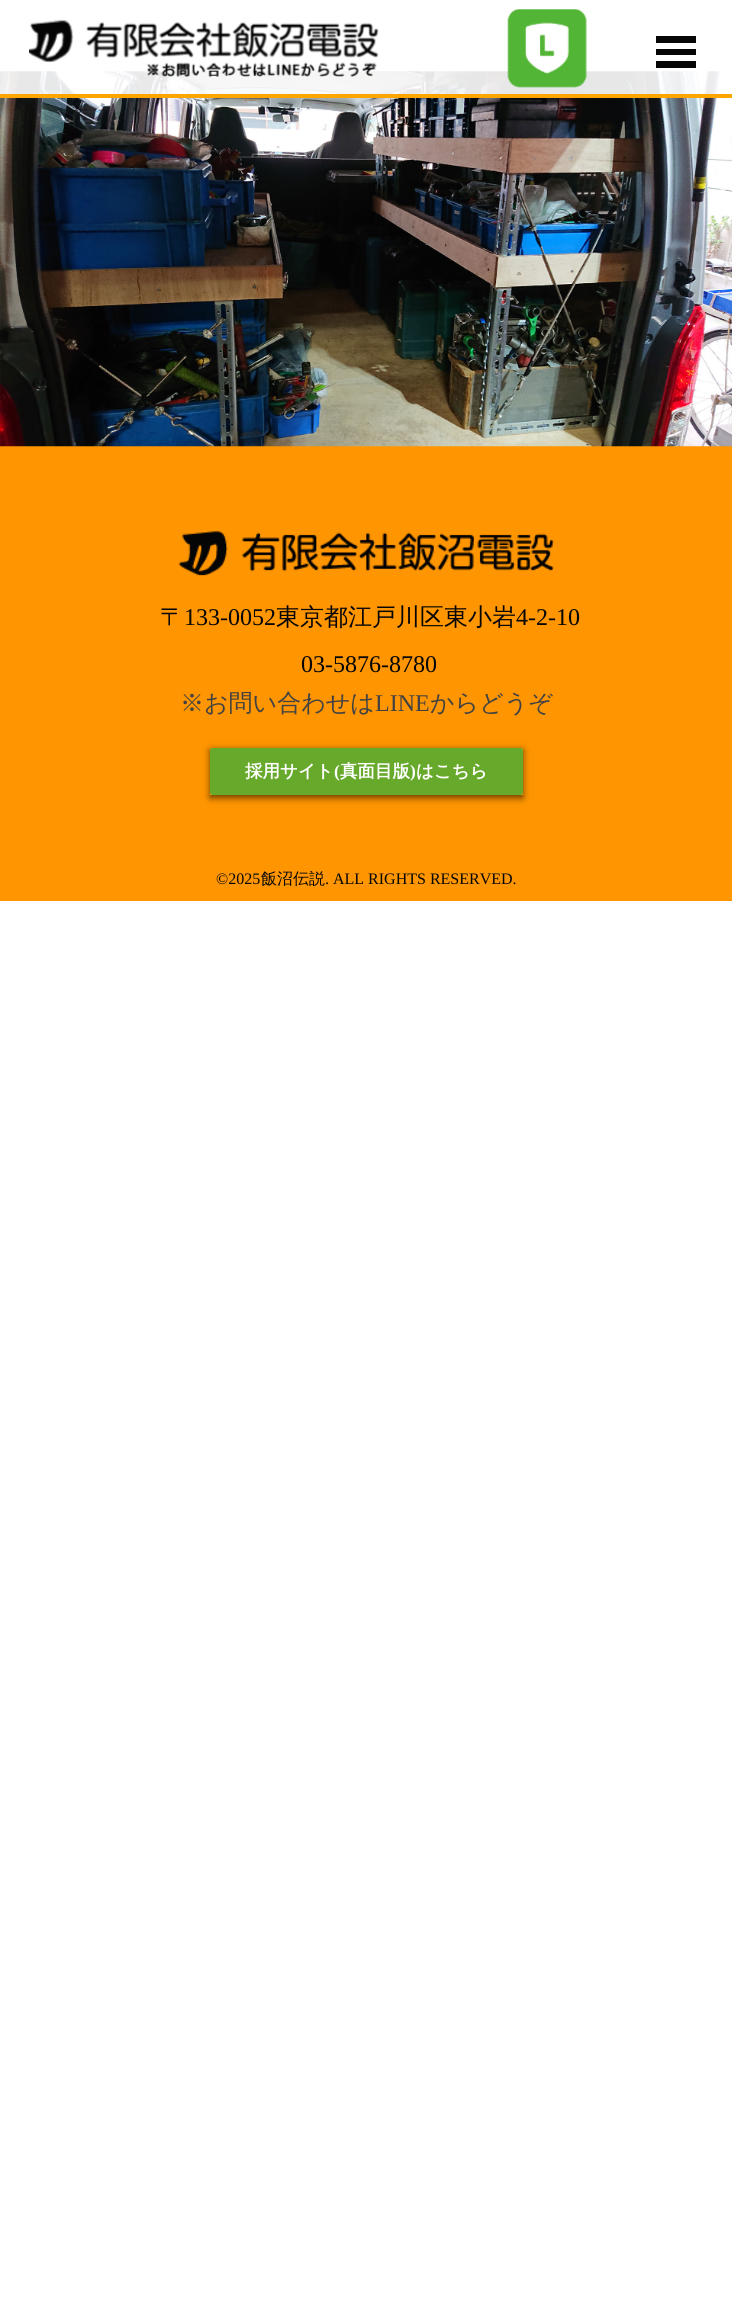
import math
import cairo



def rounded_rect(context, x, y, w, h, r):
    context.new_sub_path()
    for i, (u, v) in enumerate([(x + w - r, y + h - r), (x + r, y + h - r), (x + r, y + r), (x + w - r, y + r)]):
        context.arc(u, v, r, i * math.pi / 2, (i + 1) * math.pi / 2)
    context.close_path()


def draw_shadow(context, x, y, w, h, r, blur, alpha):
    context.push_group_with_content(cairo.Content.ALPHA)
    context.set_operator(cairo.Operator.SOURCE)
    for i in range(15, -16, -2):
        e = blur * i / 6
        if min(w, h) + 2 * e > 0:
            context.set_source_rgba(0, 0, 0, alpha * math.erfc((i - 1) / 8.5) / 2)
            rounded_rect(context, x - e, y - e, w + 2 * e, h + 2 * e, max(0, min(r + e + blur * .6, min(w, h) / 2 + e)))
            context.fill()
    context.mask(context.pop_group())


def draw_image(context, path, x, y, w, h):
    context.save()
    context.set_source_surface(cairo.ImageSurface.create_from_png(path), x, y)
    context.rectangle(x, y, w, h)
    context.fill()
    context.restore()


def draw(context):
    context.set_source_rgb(1, 1, 1)
    context.paint()
    context.set_source_rgb(1, 149 / 255, 0)
    context.rectangle(0, 446, 732, 455)
    context.fill()
    draw_image(context, "images/3.png", 0, 71, 732, 376)
    context.set_source_rgba(1, 1, 1, 0.9)
    context.rectangle(0, 71, 732, 23)
    context.fill()
    context.set_source_rgb(1, 165 / 255, 0)
    context.rectangle(0, 94, 732, 4)
    context.fill()
    draw_image(context, "images/1.png", 29, 19, 350, 58)
    draw_image(context, "images/2.png", 507, 9, 80, 79)
    context.set_source_rgb(6 / 255, 6 / 255, 6 / 255)
    context.rectangle(656, 36, 40, 7)
    context.fill()
    context.rectangle(656, 49, 40, 6)
    context.fill()
    context.rectangle(656, 61, 40, 7)
    context.fill()
    draw_image(context, "images/4.png", 178, 531, 376, 45)
    context.set_source_rgb(103 / 255, 169 / 255, 43 / 255)
    rounded_rect(context, 210, 748, 313, 47, 2.5)
    context.fill()
    context.save()
    context.set_fill_rule(cairo.FillRule.EVEN_ODD)
    context.new_path()
    context.move_to(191, 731)
    context.line_to(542, 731)
    context.line_to(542, 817)
    context.line_to(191, 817)
    context.close_path()
    context.move_to(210, 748)
    context.line_to(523, 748)
    context.line_to(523, 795)
    context.line_to(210, 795)
    context.close_path()
    context.clip()
    context.set_source_rgb(0, 0, 0)
    draw_shadow(context, 210, 750, 313, 48, 0, 6, 0.12)
    context.restore()
    context.save()
    context.set_fill_rule(cairo.FillRule.EVEN_ODD)
    context.new_path()
    context.move_to(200, 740)
    context.line_to(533, 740)
    context.line_to(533, 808)
    context.line_to(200, 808)
    context.close_path()
    context.move_to(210, 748)
    context.line_to(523, 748)
    context.line_to(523, 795)
    context.line_to(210, 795)
    context.close_path()
    context.clip()
    context.set_source_rgb(0, 0, 0)
    draw_shadow(context, 210, 750, 313, 48, 0, 3, 0.49)
    context.restore()
    context.select_font_face("WenQuanYi Zen Hei Medium")
    context.set_font_size(24)
    context.set_source_rgb(6 / 255, 6 / 255, 6 / 255)
    context.move_to(160, 625)
    context.show_text("〒")
    context.select_font_face("Liberation Serif")
    context.move_to(184, 625)
    context.show_text("133-0052")
    context.select_font_face("WenQuanYi Zen Hei Medium")
    context.move_to(276, 625)
    context.show_text("東京都江戸川区東小岩")
    context.select_font_face("Liberation Serif")
    context.move_to(516, 625)
    context.show_text("4-2-10")
    context.move_to(301, 672)
    context.show_text("03-5876-8780")
    context.select_font_face("WenQuanYi Zen Hei Medium")
    context.set_source_rgb(66 / 255, 66 / 255, 66 / 255)
    context.move_to(180, 711)
    context.show_text("※お問い合わせは")
    context.select_font_face("Liberation Serif")
    context.move_to(375, 711)
    context.show_text("LINE")
    context.select_font_face("WenQuanYi Zen Hei Medium")
    context.move_to(430, 711)
    context.show_text("からどうぞ")
    context.select_font_face("WenQuanYi Zen Hei", cairo.FontSlant.NORMAL, cairo.FontWeight.BOLD)
    context.set_font_size(17.5)
    context.set_source_rgb(1, 1, 1)
    context.move_to(245, 777)
    context.show_text("採用サイト")
    context.select_font_face("Liberation Serif", cairo.FontSlant.NORMAL, cairo.FontWeight.BOLD)
    context.move_to(334, 777)
    context.show_text("(")
    context.select_font_face("WenQuanYi Zen Hei", cairo.FontSlant.NORMAL, cairo.FontWeight.BOLD)
    context.move_to(340, 777)
    context.show_text("真面目版")
    context.select_font_face("Liberation Serif", cairo.FontSlant.NORMAL, cairo.FontWeight.BOLD)
    context.move_to(410, 777)
    context.show_text(")")
    context.select_font_face("WenQuanYi Zen Hei", cairo.FontSlant.NORMAL, cairo.FontWeight.BOLD)
    context.move_to(416, 777)
    context.show_text("はこちら")
    context.select_font_face("Liberation Serif")
    context.set_font_size(16)
    context.set_source_rgb(6 / 255, 6 / 255, 6 / 255)
    context.move_to(216, 884)
    context.show_text("©2025")
    context.select_font_face("WenQuanYi Zen Hei Medium")
    context.move_to(261, 884)
    context.show_text("飯沼伝説")
    context.select_font_face("Liberation Serif")
    context.move_to(325, 884)
    context.show_text(". ALL RIGHTS RESERVED.")


surface = cairo.ImageSurface(cairo.Format.RGB24, 732, 2304)
context = cairo.Context(surface)
options = cairo.FontOptions()
options.set_hint_metrics(cairo.HintMetrics.OFF)
options.set_hint_style(cairo.HintStyle.NONE)
context.set_font_options(options)
context.set_miter_limit(4)
draw(context)
surface.write_to_png("out.png")
